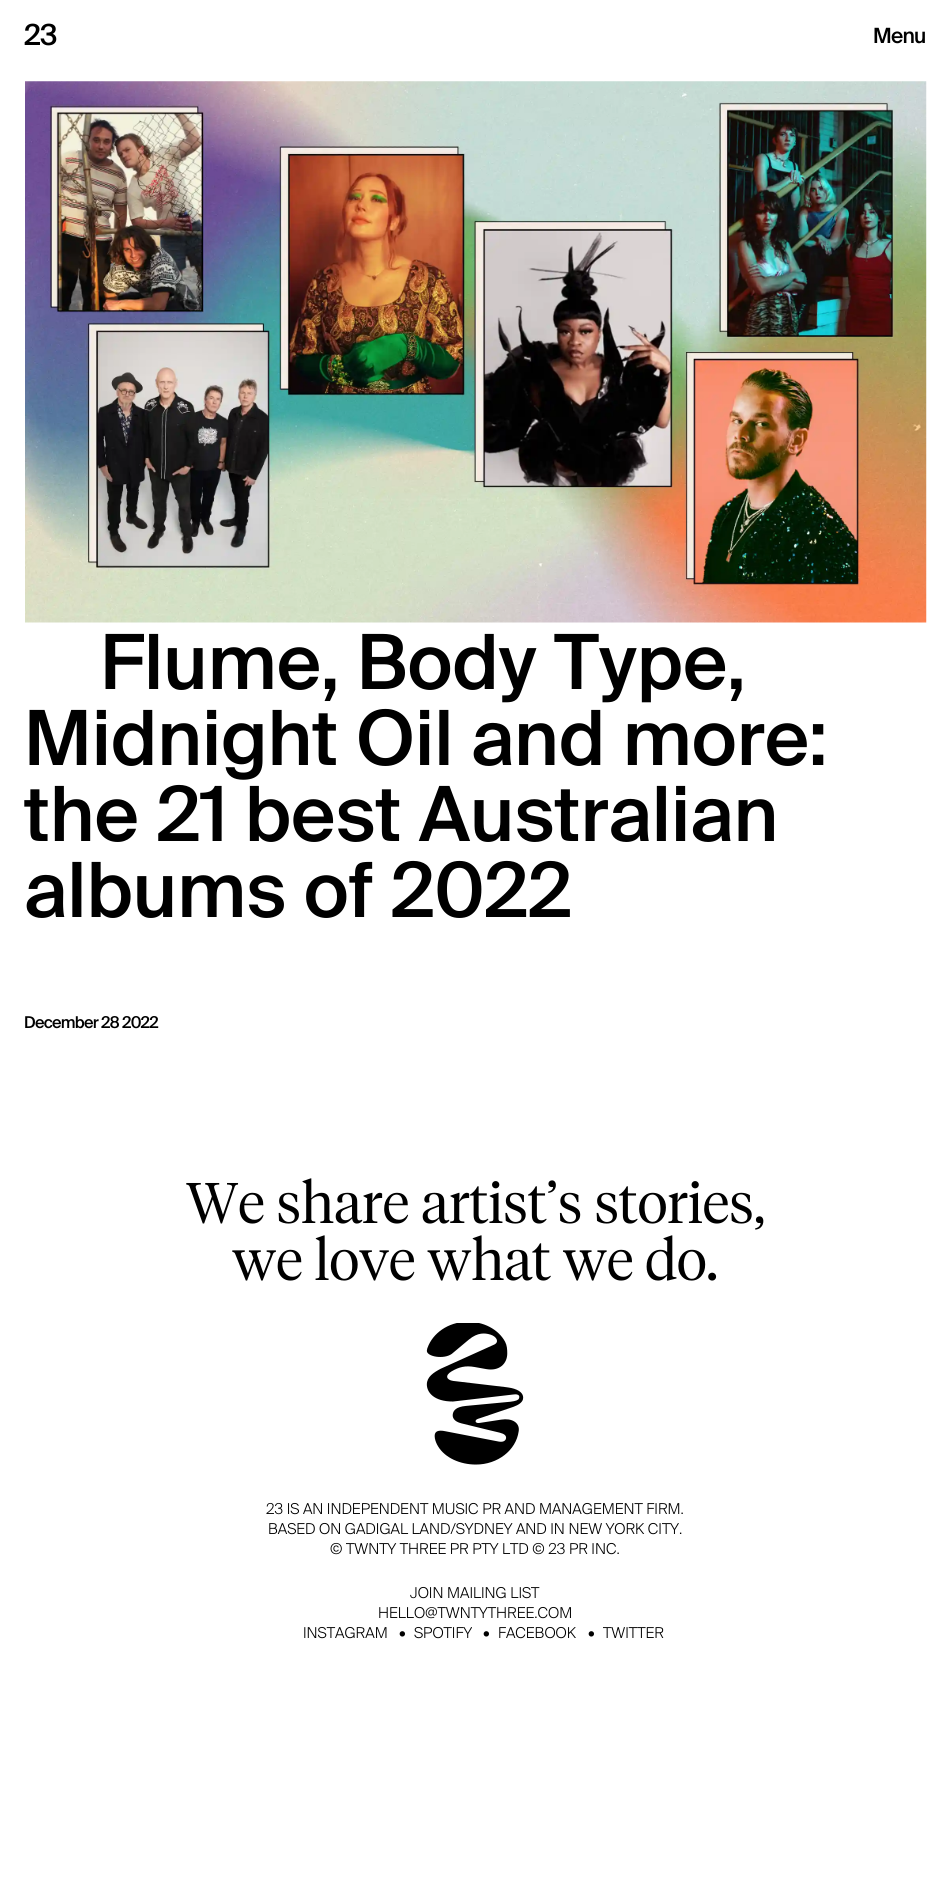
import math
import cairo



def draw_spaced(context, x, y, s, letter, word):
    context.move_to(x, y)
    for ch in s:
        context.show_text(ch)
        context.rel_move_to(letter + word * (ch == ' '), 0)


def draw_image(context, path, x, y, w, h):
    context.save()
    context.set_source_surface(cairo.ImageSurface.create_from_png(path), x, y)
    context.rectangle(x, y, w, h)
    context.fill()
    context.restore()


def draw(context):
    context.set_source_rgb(1, 1, 1)
    context.paint()
    draw_image(context, "images/1.png", 25, 81, 902, 542)
    draw_image(context, "images/2.png", 426, 1323, 98, 142)
    context.select_font_face("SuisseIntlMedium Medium")
    context.set_font_size(29)
    context.set_source_rgb(0, 0, 0)
    draw_spaced(context, 24, 45, "23", -0.75, 0)
    context.set_font_size(21)
    draw_spaced(context, 873, 43, "Menu", -0.75, 0)
    context.set_font_size(76)
    context.move_to(100, 689)
    context.show_text("Flume, Body Type,")
    context.move_to(24, 765)
    context.show_text("Midnight Oil and more:")
    context.move_to(24, 841)
    context.show_text("the 21 best Australian")
    context.move_to(24, 917)
    context.show_text("albums of 2022")
    context.set_font_size(16.25)
    draw_spaced(context, 24, 1028, "December 28 2022", -0.75, 0)
    context.select_font_face("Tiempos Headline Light")
    context.set_font_size(57)
    context.move_to(186, 1223)
    context.show_text("We share artist’s stories,")
    context.move_to(232, 1280)
    context.show_text("we love what we do.")
    context.select_font_face("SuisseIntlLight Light")
    context.set_font_size(15)
    context.move_to(266, 1514)
    context.show_text("23 IS AN INDEPENDENT MUSIC PR AND MANAGEMENT FIRM.")
    context.move_to(268, 1534)
    context.show_text("BASED ON GADIGAL LAND/SYDNEY AND IN NEW YORK CITY.")
    context.move_to(330, 1554)
    context.show_text("© TWNTY THREE PR PTY LTD © 23 PR INC.")
    context.move_to(410, 1598)
    context.show_text("JOIN MAILING LIST")
    context.move_to(378, 1618)
    context.show_text("HELLO@TWNTYTHREE.COM")
    context.move_to(303, 1638)
    context.show_text("INSTAGRAM")
    context.move_to(399, 1638)
    context.show_text("•")
    context.move_to(414, 1638)
    context.show_text("SPOTIFY")
    context.move_to(483, 1638)
    context.show_text("•")
    context.move_to(498, 1638)
    context.show_text("FACEBOOK")
    context.move_to(588, 1638)
    context.show_text("•")
    context.move_to(603, 1638)
    context.show_text("TWITTER")


surface = cairo.ImageSurface(cairo.Format.RGB24, 949, 1887)
context = cairo.Context(surface)
options = cairo.FontOptions()
options.set_hint_metrics(cairo.HintMetrics.OFF)
options.set_hint_style(cairo.HintStyle.NONE)
context.set_font_options(options)
context.set_miter_limit(4)
draw(context)
surface.write_to_png("out.png")
